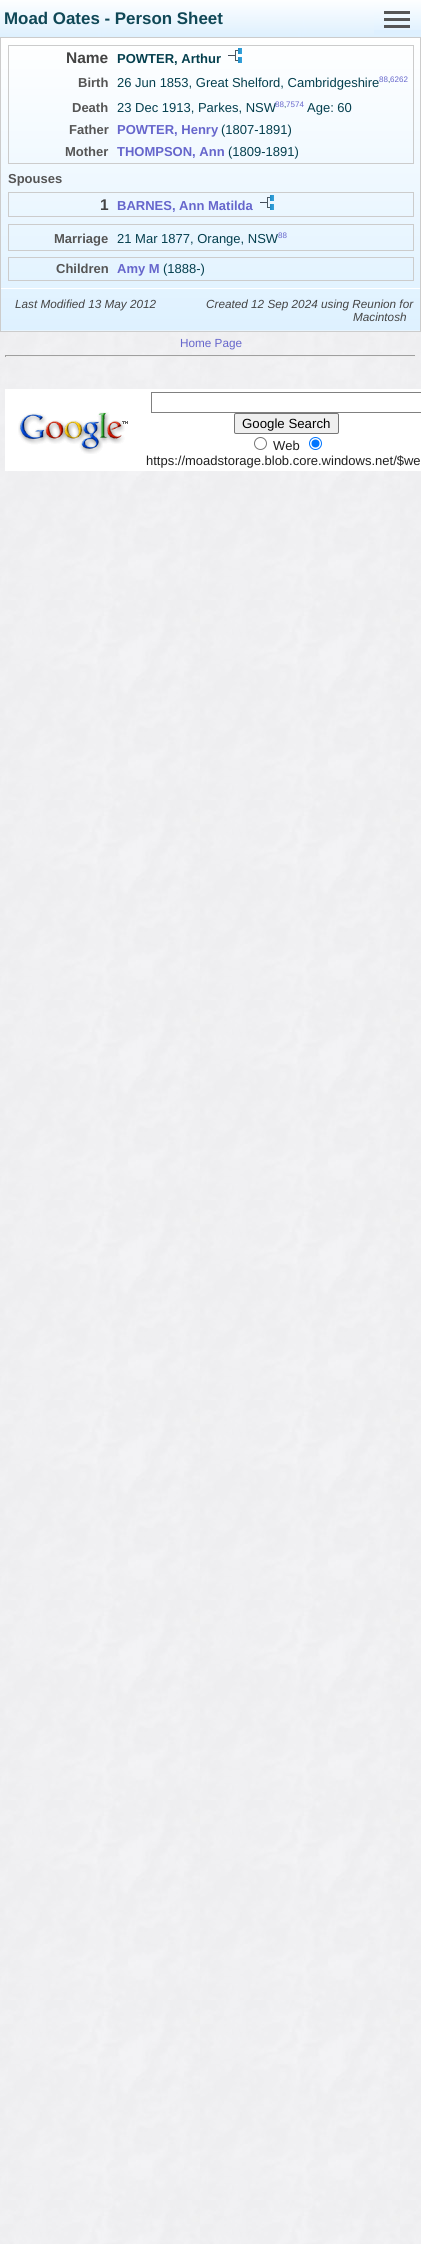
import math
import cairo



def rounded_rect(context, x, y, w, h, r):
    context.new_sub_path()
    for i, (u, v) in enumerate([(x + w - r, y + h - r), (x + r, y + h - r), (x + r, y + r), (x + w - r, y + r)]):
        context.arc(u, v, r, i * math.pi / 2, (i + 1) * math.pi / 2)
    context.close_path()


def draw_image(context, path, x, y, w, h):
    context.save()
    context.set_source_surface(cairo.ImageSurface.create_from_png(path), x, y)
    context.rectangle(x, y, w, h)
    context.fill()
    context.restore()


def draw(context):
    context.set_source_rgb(1, 1, 1)
    context.paint()
    draw_image(context, "images/1.png", 0, 0, 421, 2244)
    context.set_source_rgba(222 / 255, 241 / 255, 1, 0.95)
    context.rectangle(0, 0, 421, 37)
    context.fill()
    draw_image(context, "images/2.png", 0, 0, 421, 36)
    context.rectangle(374, 0, 47, 35)
    context.fill()
    draw_image(context, "images/3.png", 374, 0, 47, 30)
    draw_image(context, "images/4.png", 384, 11, 26, 17)
    context.set_source_rgb(222 / 255, 241 / 255, 1)
    context.rectangle(1, 40, 419, 291)
    context.fill()
    draw_image(context, "images/5.png", 1, 38, 419, 293)
    context.rectangle(0.5, 37.5, 420, 294)
    context.set_source_rgb(204 / 255, 204 / 255, 204 / 255)
    context.set_line_width(1)
    context.stroke()
    context.rectangle(8.5, 45.5, 405, 118)
    context.stroke()
    draw_image(context, "images/6.png", 228, 48, 14, 15)
    context.rectangle(8.5, 192.5, 405, 24)
    context.stroke()
    draw_image(context, "images/7.png", 260, 195, 14, 15)
    context.rectangle(8.5, 224.5, 405, 26)
    context.stroke()
    context.rectangle(8.5, 257.5, 405, 23)
    context.stroke()
    context.set_source_rgb(1, 1, 1)
    context.rectangle(1, 288, 419, 1)
    context.fill()
    context.set_source_rgb(159 / 255, 159 / 255, 159 / 255)
    context.rectangle(5, 355, 411, 1)
    context.fill()
    context.set_source_rgb(238 / 255, 238 / 255, 238 / 255)
    context.rectangle(415, 355, 1, 2)
    context.fill()
    context.rectangle(5, 356, 411, 1)
    context.fill()
    context.set_source_rgb(159 / 255, 159 / 255, 159 / 255)
    context.rectangle(5, 355, 1, 2)
    context.fill()
    context.set_source_rgb(1, 1, 1)
    context.rectangle(5, 389, 416, 82)
    context.fill()
    draw_image(context, "images/8.png", 18, 412, 110, 42)
    context.rectangle(151.5, 392.5, 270, 20)
    context.set_source_rgb(128 / 255, 128 / 255, 128 / 255)
    context.stroke()
    context.set_source_rgb(239 / 255, 239 / 255, 239 / 255)
    rounded_rect(context, 234.5, 413.5, 104, 20, 1.5)
    context.fill_preserve()
    context.set_source_rgb(118 / 255, 118 / 255, 118 / 255)
    context.stroke()
    context.arc(260.5, 443.5, 6, 0, 2 * math.pi)
    context.stroke()
    context.arc(315.5, 443.5, 6, 0, 2 * math.pi)
    context.set_source_rgb(0, 117 / 255, 1)
    context.stroke()
    context.arc(315.5, 443.5, 4, 0, 2 * math.pi)
    context.fill()
    context.select_font_face("Liberation Sans", cairo.FontSlant.NORMAL, cairo.FontWeight.BOLD)
    context.set_font_size(16.9)
    context.set_source_rgb(16 / 255, 72 / 255, 87 / 255)
    context.move_to(4, 24)
    context.show_text("Moad Oates - Person Sheet")
    context.set_font_size(15.5)
    context.set_source_rgb(68 / 255, 68 / 255, 68 / 255)
    context.move_to(66, 63)
    context.show_text("Name")
    context.set_font_size(13)
    context.set_source_rgb(4 / 255, 63 / 255, 78 / 255)
    context.move_to(117, 63)
    context.show_text("POWTER, Arthur")
    context.set_source_rgb(85 / 255, 85 / 255, 85 / 255)
    context.move_to(78, 87)
    context.show_text("Birth")
    context.select_font_face("Liberation Sans")
    context.set_source_rgb(4 / 255, 63 / 255, 78 / 255)
    context.move_to(117, 87)
    context.show_text("26 Jun 1853, Great Shelford, Cambridgeshire")
    context.set_font_size(8)
    context.set_source_rgb(102 / 255, 102 / 255, 204 / 255)
    context.move_to(379, 82)
    context.show_text("88 6262")
    context.set_source_rgb(4 / 255, 63 / 255, 78 / 255)
    context.move_to(388, 82)
    context.show_text(",")
    context.select_font_face("Liberation Sans", cairo.FontSlant.NORMAL, cairo.FontWeight.BOLD)
    context.set_font_size(13)
    context.set_source_rgb(85 / 255, 85 / 255, 85 / 255)
    context.move_to(72, 112)
    context.show_text("Death")
    context.select_font_face("Liberation Sans")
    context.set_source_rgb(4 / 255, 63 / 255, 78 / 255)
    context.move_to(117, 112)
    context.show_text("23 Dec 1913, Parkes, NSW")
    context.set_font_size(8)
    context.set_source_rgb(102 / 255, 102 / 255, 204 / 255)
    context.move_to(275, 107)
    context.show_text("88 7574")
    context.set_font_size(13)
    context.set_source_rgb(4 / 255, 63 / 255, 78 / 255)
    context.move_to(307, 112)
    context.show_text("Age: 60")
    context.set_font_size(8)
    context.move_to(284, 107)
    context.show_text(",")
    context.select_font_face("Liberation Sans", cairo.FontSlant.NORMAL, cairo.FontWeight.BOLD)
    context.set_font_size(13)
    context.set_source_rgb(85 / 255, 85 / 255, 85 / 255)
    context.move_to(69, 134)
    context.show_text("Father")
    context.set_source_rgb(102 / 255, 102 / 255, 204 / 255)
    context.move_to(117, 134)
    context.show_text("POWTER, Henry")
    context.select_font_face("Liberation Sans")
    context.set_source_rgb(4 / 255, 63 / 255, 78 / 255)
    context.move_to(221, 134)
    context.show_text("(1807-1891)")
    context.select_font_face("Liberation Sans", cairo.FontSlant.NORMAL, cairo.FontWeight.BOLD)
    context.set_source_rgb(85 / 255, 85 / 255, 85 / 255)
    context.move_to(65, 156)
    context.show_text("Mother")
    context.set_source_rgb(102 / 255, 102 / 255, 204 / 255)
    context.move_to(117, 156)
    context.show_text("THOMPSON, Ann")
    context.select_font_face("Liberation Sans")
    context.set_source_rgb(4 / 255, 63 / 255, 78 / 255)
    context.move_to(228, 156)
    context.show_text("(1809-1891)")
    context.select_font_face("Liberation Sans", cairo.FontSlant.NORMAL, cairo.FontWeight.BOLD)
    context.set_source_rgb(85 / 255, 85 / 255, 85 / 255)
    context.move_to(8, 183)
    context.show_text("Spouses")
    context.set_font_size(15.5)
    context.set_source_rgb(68 / 255, 68 / 255, 68 / 255)
    context.move_to(100, 210)
    context.show_text("1")
    context.set_font_size(13)
    context.set_source_rgb(102 / 255, 102 / 255, 204 / 255)
    context.move_to(117, 210)
    context.show_text("BARNES, Ann Matilda")
    context.set_source_rgb(85 / 255, 85 / 255, 85 / 255)
    context.move_to(54, 243)
    context.show_text("Marriage")
    context.select_font_face("Liberation Sans")
    context.set_source_rgb(4 / 255, 63 / 255, 78 / 255)
    context.move_to(117, 243)
    context.show_text("21 Mar 1877, Orange, NSW")
    context.set_font_size(8)
    context.set_source_rgb(102 / 255, 102 / 255, 204 / 255)
    context.move_to(278, 238)
    context.show_text("88")
    context.select_font_face("Liberation Sans", cairo.FontSlant.NORMAL, cairo.FontWeight.BOLD)
    context.set_font_size(13)
    context.set_source_rgb(85 / 255, 85 / 255, 85 / 255)
    context.move_to(56, 273)
    context.show_text("Children")
    context.set_source_rgb(102 / 255, 102 / 255, 204 / 255)
    context.move_to(117, 273)
    context.show_text("Amy M")
    context.select_font_face("Liberation Sans")
    context.set_source_rgb(4 / 255, 63 / 255, 78 / 255)
    context.move_to(163, 273)
    context.show_text("(1888-)")
    context.select_font_face("Liberation Sans", cairo.FontSlant.ITALIC)
    context.set_font_size(11.75)
    context.set_source_rgb(68 / 255, 68 / 255, 68 / 255)
    context.move_to(15, 308)
    context.show_text("Last Modified 13 May 2012")
    context.move_to(206, 308)
    context.show_text("Created 12 Sep 2024 using Reunion for")
    context.move_to(353, 321)
    context.show_text("Macintosh")
    context.select_font_face("Liberation Sans")
    context.set_source_rgb(102 / 255, 102 / 255, 204 / 255)
    context.move_to(180, 347)
    context.show_text("Home Page")
    context.set_font_size(13.25)
    context.set_source_rgb(0, 0, 0)
    context.move_to(242, 428)
    context.show_text("Google Search")
    context.set_font_size(13)
    context.set_source_rgb(32 / 255, 32 / 255, 32 / 255)
    context.move_to(273, 450)
    context.show_text("Web")
    context.move_to(146, 465)
    context.show_text("https://moadstorage.blob.core.windows.net/$we")


surface = cairo.ImageSurface(cairo.Format.RGB24, 421, 2244)
context = cairo.Context(surface)
options = cairo.FontOptions()
options.set_hint_metrics(cairo.HintMetrics.OFF)
options.set_hint_style(cairo.HintStyle.NONE)
context.set_font_options(options)
context.set_miter_limit(4)
draw(context)
surface.write_to_png("out.png")
